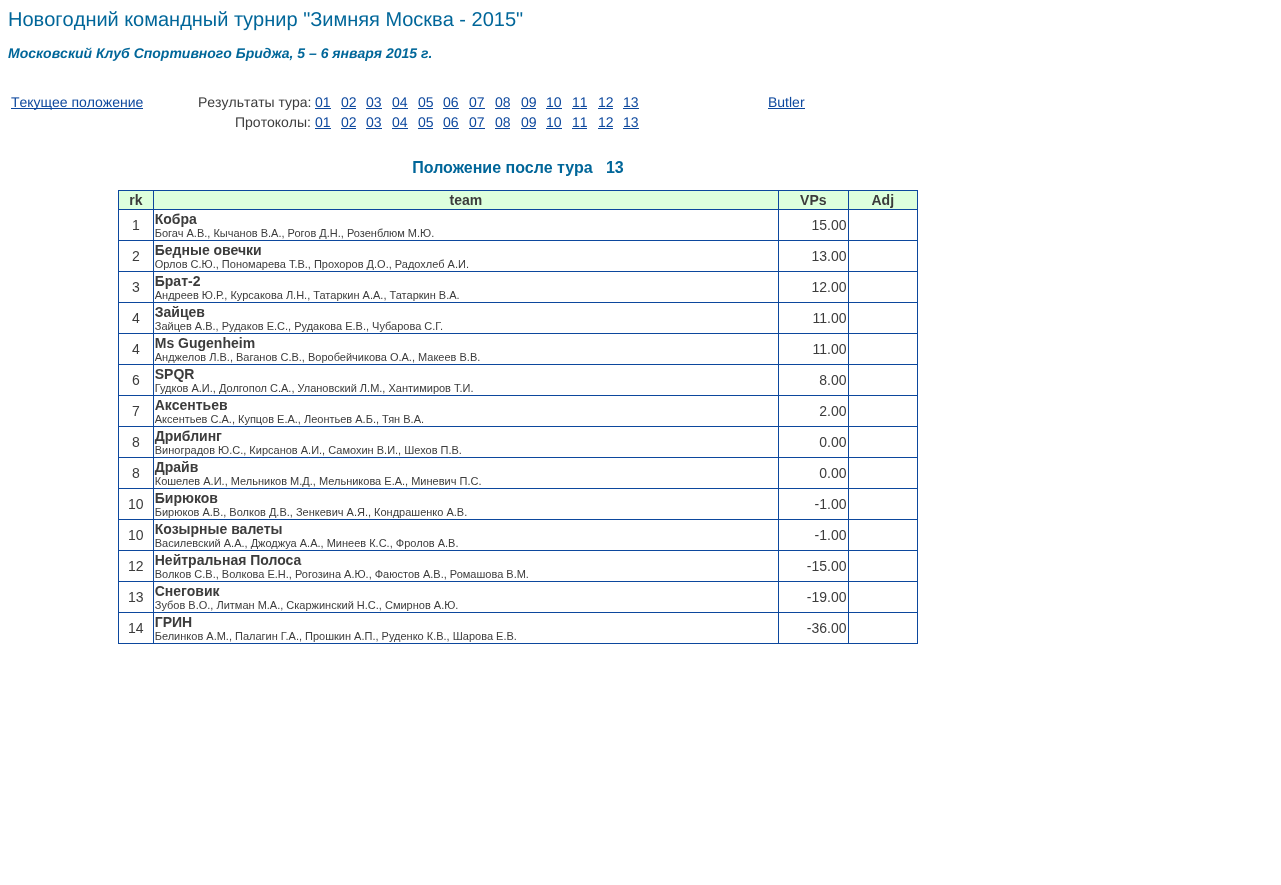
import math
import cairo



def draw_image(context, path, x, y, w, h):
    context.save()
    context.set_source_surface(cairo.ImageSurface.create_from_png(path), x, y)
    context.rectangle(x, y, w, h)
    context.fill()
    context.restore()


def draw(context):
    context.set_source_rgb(1, 1, 1)
    context.paint()
    context.set_source_rgb(12 / 255, 71 / 255, 157 / 255)
    context.rectangle(11, 108, 132, 1)
    context.fill()
    context.rectangle(315, 108, 16, 1)
    context.fill()
    context.rectangle(341, 108, 15, 1)
    context.fill()
    context.rectangle(366, 108, 16, 1)
    context.fill()
    context.rectangle(392, 108, 16, 1)
    context.fill()
    context.rectangle(418, 108, 15, 1)
    context.fill()
    context.rectangle(443, 108, 16, 1)
    context.fill()
    context.rectangle(469, 108, 16, 1)
    context.fill()
    context.rectangle(495, 108, 15, 1)
    context.fill()
    context.rectangle(521, 108, 15, 1)
    context.fill()
    context.rectangle(546, 108, 16, 1)
    context.fill()
    context.rectangle(572, 108, 15, 1)
    context.fill()
    context.rectangle(598, 108, 15, 1)
    context.fill()
    context.rectangle(623, 108, 16, 1)
    context.fill()
    context.rectangle(768, 108, 37, 1)
    context.fill()
    context.rectangle(315, 128, 16, 1)
    context.fill()
    context.rectangle(341, 128, 15, 1)
    context.fill()
    context.rectangle(366, 128, 16, 1)
    context.fill()
    context.rectangle(392, 128, 16, 1)
    context.fill()
    context.rectangle(418, 128, 15, 1)
    context.fill()
    context.rectangle(443, 128, 16, 1)
    context.fill()
    context.rectangle(469, 128, 16, 1)
    context.fill()
    context.rectangle(495, 128, 15, 1)
    context.fill()
    context.rectangle(521, 128, 15, 1)
    context.fill()
    context.rectangle(546, 128, 16, 1)
    context.fill()
    context.rectangle(572, 128, 15, 1)
    context.fill()
    context.rectangle(598, 128, 15, 1)
    context.fill()
    context.rectangle(623, 128, 16, 1)
    context.fill()
    draw_image(context, "images/1.png", 118, 161, 800, 483)
    context.select_font_face("Liberation Sans")
    context.set_font_size(20)
    context.set_source_rgb(0, 102 / 255, 153 / 255)
    context.move_to(8, 26)
    context.show_text("Новогодний командный турнир \"Зимняя Москва - 2015\"")
    context.select_font_face("Liberation Sans", cairo.FontSlant.ITALIC, cairo.FontWeight.BOLD)
    context.set_font_size(14)
    context.move_to(8, 58)
    context.show_text("Московский Клуб Спортивного Бриджа, 5 – 6 января 2015 г.")
    context.select_font_face("Liberation Sans")
    context.set_source_rgb(12 / 255, 71 / 255, 157 / 255)
    context.move_to(11, 107)
    context.show_text("Текущее положение")
    context.set_source_rgb(60 / 255, 60 / 255, 60 / 255)
    context.move_to(198, 107)
    context.show_text("Результаты тура:")
    context.set_source_rgb(12 / 255, 71 / 255, 157 / 255)
    context.move_to(315, 107)
    context.show_text("01")
    context.move_to(341, 107)
    context.show_text("02")
    context.move_to(366, 107)
    context.show_text("03")
    context.move_to(392, 107)
    context.show_text("04")
    context.move_to(418, 107)
    context.show_text("05")
    context.move_to(443, 107)
    context.show_text("06")
    context.move_to(469, 107)
    context.show_text("07")
    context.move_to(495, 107)
    context.show_text("08")
    context.move_to(521, 107)
    context.show_text("09")
    context.move_to(546, 107)
    context.show_text("10")
    context.move_to(572, 107)
    context.show_text("11")
    context.move_to(598, 107)
    context.show_text("12")
    context.move_to(623, 107)
    context.show_text("13")
    context.move_to(768, 107)
    context.show_text("Butler")
    context.set_source_rgb(60 / 255, 60 / 255, 60 / 255)
    context.move_to(235, 127)
    context.show_text("Протоколы:")
    context.set_source_rgb(12 / 255, 71 / 255, 157 / 255)
    context.move_to(315, 127)
    context.show_text("01")
    context.move_to(341, 127)
    context.show_text("02")
    context.move_to(366, 127)
    context.show_text("03")
    context.move_to(392, 127)
    context.show_text("04")
    context.move_to(418, 127)
    context.show_text("05")
    context.move_to(443, 127)
    context.show_text("06")
    context.move_to(469, 127)
    context.show_text("07")
    context.move_to(495, 127)
    context.show_text("08")
    context.move_to(521, 127)
    context.show_text("09")
    context.move_to(546, 127)
    context.show_text("10")
    context.move_to(572, 127)
    context.show_text("11")
    context.move_to(598, 127)
    context.show_text("12")
    context.move_to(623, 127)
    context.show_text("13")


surface = cairo.ImageSurface(cairo.Format.RGB24, 1281, 885)
context = cairo.Context(surface)
options = cairo.FontOptions()
options.set_hint_metrics(cairo.HintMetrics.OFF)
options.set_hint_style(cairo.HintStyle.NONE)
context.set_font_options(options)
context.set_miter_limit(4)
draw(context)
surface.write_to_png("out.png")
